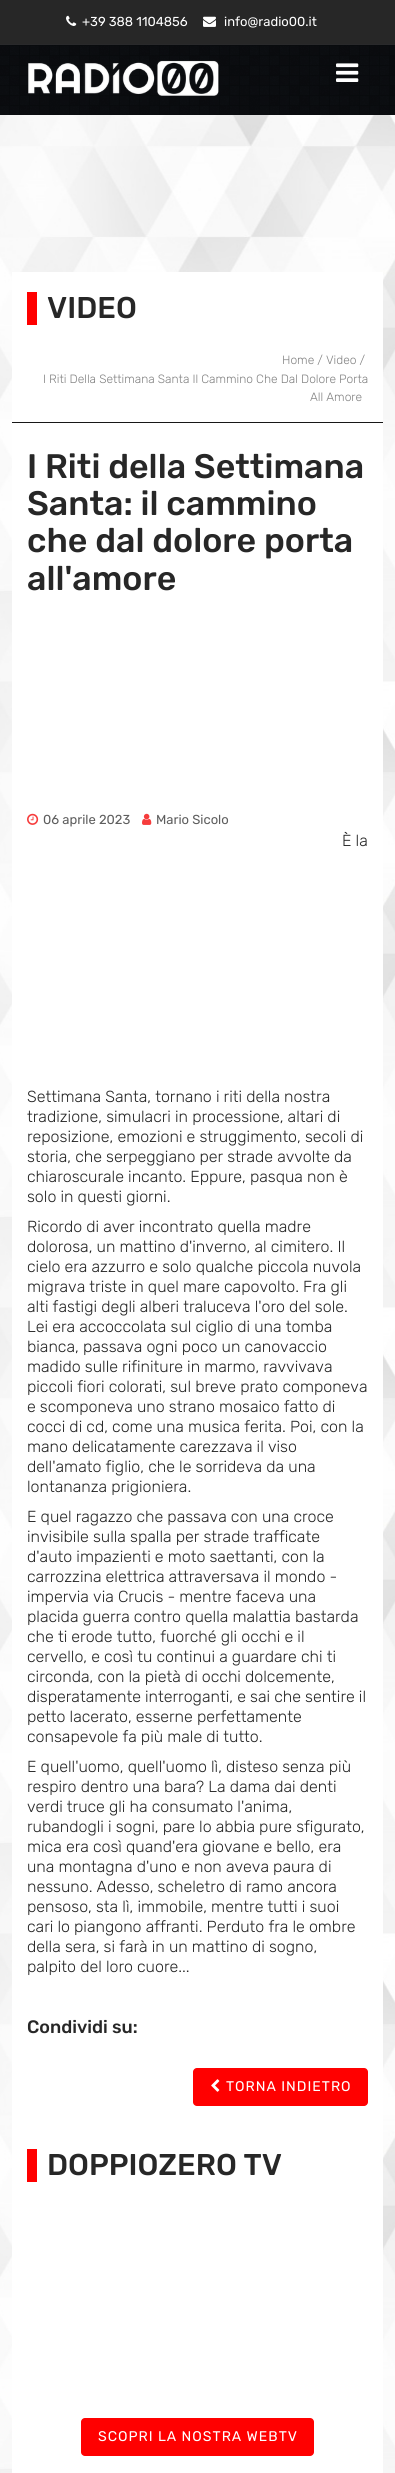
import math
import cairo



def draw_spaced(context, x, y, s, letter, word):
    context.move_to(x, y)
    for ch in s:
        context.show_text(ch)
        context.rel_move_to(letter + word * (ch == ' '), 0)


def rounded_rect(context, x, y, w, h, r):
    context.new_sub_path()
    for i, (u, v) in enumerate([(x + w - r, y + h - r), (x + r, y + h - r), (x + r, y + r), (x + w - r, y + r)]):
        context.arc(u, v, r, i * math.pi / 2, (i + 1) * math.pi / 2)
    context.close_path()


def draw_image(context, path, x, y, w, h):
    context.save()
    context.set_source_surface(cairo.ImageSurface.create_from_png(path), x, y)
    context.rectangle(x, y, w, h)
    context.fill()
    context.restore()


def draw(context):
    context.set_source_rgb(1, 1, 1)
    context.paint()
    draw_image(context, "images/1.png", 0, 115, 395, 2358)
    context.set_source_rgb(41 / 255, 41 / 255, 43 / 255)
    context.rectangle(0, 44, 395, 71)
    context.fill()
    context.set_source_rgb(39 / 255, 39 / 255, 39 / 255)
    context.rectangle(0, 0, 395, 44)
    context.fill()
    draw_image(context, "images/2.png", 66, 15, 11, 11)
    draw_image(context, "images/3.png", 203, 16, 13, 11)
    draw_image(context, "images/4.png", 0, 45, 395, 70)
    draw_image(context, "images/5.png", 28, 60, 191, 36)
    draw_image(context, "images/6.png", 336, 63, 23, 19)
    context.set_source_rgb(1, 1, 1)
    context.rectangle(12, 272, 371, 150)
    context.fill()
    context.set_source_rgb(23 / 255, 23 / 255, 23 / 255)
    context.rectangle(12, 422, 371, 1)
    context.fill()
    context.set_source_rgb(1, 0, 0)
    context.rectangle(27, 292, 10, 33)
    context.fill()
    context.set_source_rgb(1, 1, 1)
    context.rectangle(12, 423, 371, 2050)
    context.fill()
    draw_image(context, "images/7.png", 27, 813, 12, 12)
    draw_image(context, "images/8.png", 142, 813, 10, 12)
    context.set_source_rgb(1, 0, 0)
    rounded_rect(context, 193, 2068, 175, 38, 4)
    context.fill()
    draw_image(context, "images/9.png", 211, 2079, 9, 13)
    context.rectangle(27, 2149, 10, 33)
    context.fill()
    rounded_rect(context, 81, 2418, 233, 38, 4)
    context.fill()
    context.select_font_face("Rubik")
    context.set_font_size(13)
    context.set_source_rgb(1, 1, 1)
    context.move_to(82, 26)
    context.show_text("+39 388 1104856")
    context.move_to(224, 26)
    context.show_text("info@radio00.it")
    context.select_font_face("Rubik Medium")
    context.set_font_size(30)
    context.set_source_rgb(39 / 255, 39 / 255, 39 / 255)
    context.move_to(47, 318)
    context.show_text("VIDEO")
    context.select_font_face("Rubik Light")
    context.set_font_size(12)
    context.set_source_rgb(130 / 255, 130 / 255, 130 / 255)
    context.move_to(282, 364)
    context.show_text("Home / Video /")
    context.move_to(43, 383)
    context.show_text("I Riti Della Settimana Santa Il Cammino Che Dal Dolore Porta")
    context.move_to(310, 401)
    context.show_text("All Amore")
    context.select_font_face("Rubik Medium")
    context.set_font_size(34)
    context.set_source_rgb(39 / 255, 39 / 255, 39 / 255)
    context.move_to(27, 478)
    context.show_text("I Riti della Settimana")
    context.move_to(27, 515)
    context.show_text("Santa: il cammino")
    context.move_to(27, 552)
    context.show_text("che dal dolore porta")
    context.move_to(27, 590)
    context.show_text("all'amore")
    context.select_font_face("Rubik")
    context.set_font_size(13)
    context.set_source_rgb(94 / 255, 94 / 255, 94 / 255)
    context.move_to(43, 824)
    context.show_text("06 aprile 2023")
    context.move_to(156, 824)
    context.show_text("Mario Sicolo")
    context.select_font_face("Rubik Light")
    context.set_font_size(16)
    context.set_source_rgb(39 / 255, 39 / 255, 39 / 255)
    context.move_to(342, 846)
    context.show_text("È la")
    context.move_to(27, 1102)
    context.show_text("Settimana Santa, tornano i riti della nostra")
    context.move_to(27, 1122)
    context.show_text("tradizione, simulacri in processione, altari di")
    context.move_to(27, 1142)
    context.show_text("reposizione, emozioni e struggimento, secoli di")
    context.move_to(27, 1162)
    context.show_text("storia, che serpeggiano per strade avvolte da")
    context.move_to(27, 1182)
    context.show_text("chiaroscurale incanto. Eppure, pasqua non è")
    context.move_to(27, 1202)
    context.show_text("solo in questi giorni.")
    context.move_to(27, 1232)
    context.show_text("Ricordo di aver incontrato quella madre")
    context.move_to(27, 1252)
    context.show_text("dolorosa, un mattino d'inverno, al cimitero. Il")
    context.move_to(27, 1272)
    context.show_text("cielo era azzurro e solo qualche piccola nuvola")
    context.move_to(27, 1292)
    context.show_text("migrava triste in quel mare capovolto. Fra gli")
    context.move_to(27, 1312)
    context.show_text("alti fastigi degli alberi traluceva l'oro del sole.")
    context.move_to(27, 1332)
    context.show_text("Lei era accoccolata sul ciglio di una tomba")
    context.move_to(27, 1352)
    context.show_text("bianca, passava ogni poco un canovaccio")
    context.move_to(27, 1372)
    context.show_text("madido sulle rifiniture in marmo, ravvivava")
    context.move_to(27, 1392)
    context.show_text("piccoli fiori colorati, sul breve prato componeva")
    context.move_to(27, 1412)
    context.show_text("e scomponeva uno strano mosaico fatto di")
    context.move_to(27, 1432)
    context.show_text("cocci di cd, come una musica ferita. Poi, con la")
    context.move_to(27, 1452)
    context.show_text("mano delicatamente carezzava il viso")
    context.move_to(27, 1472)
    context.show_text("dell'amato figlio, che le sorrideva da una")
    context.move_to(27, 1492)
    context.show_text("lontananza prigioniera.")
    context.move_to(27, 1522)
    context.show_text("E quel ragazzo che passava con una croce")
    context.move_to(27, 1542)
    context.show_text("invisibile sulla spalla per strade trafficate")
    context.move_to(27, 1562)
    context.show_text("d'auto impazienti e moto saettanti, con la")
    context.move_to(27, 1582)
    context.show_text("carrozzina elettrica attraversava il mondo -")
    context.move_to(27, 1602)
    context.show_text("impervia via Crucis - mentre faceva una")
    context.move_to(27, 1622)
    context.show_text("placida guerra contro quella malattia bastarda")
    context.move_to(27, 1642)
    context.show_text("che ti erode tutto, fuorché gli occhi e il")
    context.move_to(27, 1662)
    context.show_text("cervello, e così tu continui a guardare chi ti")
    context.move_to(27, 1682)
    context.show_text("circonda, con la pietà di occhi dolcemente,")
    context.move_to(27, 1702)
    context.show_text("disperatamente interroganti, e sai che sentire il")
    context.move_to(27, 1722)
    context.show_text("petto lacerato, esserne perfettamente")
    context.move_to(27, 1742)
    context.show_text("consapevole fa più male di tutto.")
    context.move_to(27, 1772)
    context.show_text("E quell'uomo, quell'uomo lì, disteso senza più")
    context.move_to(27, 1792)
    context.show_text("respiro dentro una bara? La dama dai denti")
    context.move_to(27, 1812)
    context.show_text("verdi truce gli ha consumato l'anima,")
    context.move_to(27, 1832)
    context.show_text("rubandogli i sogni, pare lo abbia pure sfigurato,")
    context.move_to(27, 1852)
    context.show_text("mica era così quand'era giovane e bello, era")
    context.move_to(27, 1872)
    context.show_text("una montagna d'uno e non aveva paura di")
    context.move_to(27, 1892)
    context.show_text("nessuno. Adesso, scheletro di ramo ancora")
    context.move_to(27, 1912)
    context.show_text("pensoso, sta lì, immobile, mentre tutti i suoi")
    context.move_to(27, 1932)
    context.show_text("cari lo piangono affranti. Perduto fra le ombre")
    context.move_to(27, 1952)
    context.show_text("della sera, si farà in un mattino di sogno,")
    context.move_to(27, 1972)
    context.show_text("palpito del loro cuore...")
    context.select_font_face("Rubik Medium")
    context.set_font_size(18)
    context.move_to(27, 2033)
    context.show_text("Condividi su:")
    context.select_font_face("Rubik")
    context.set_font_size(14)
    context.set_source_rgb(1, 1, 1)
    draw_spaced(context, 226, 2091, "TORNA INDIETRO", 1, 0)
    context.select_font_face("Rubik Medium")
    context.set_font_size(30)
    context.set_source_rgb(39 / 255, 39 / 255, 39 / 255)
    context.move_to(47, 2175)
    context.show_text("DOPPIOZERO TV")
    context.select_font_face("Rubik")
    context.set_font_size(14)
    context.set_source_rgb(1, 1, 1)
    draw_spaced(context, 98, 2441, "SCOPRI LA NOSTRA WEBTV", 1, 0)


surface = cairo.ImageSurface(cairo.Format.RGB24, 395, 2473)
context = cairo.Context(surface)
options = cairo.FontOptions()
options.set_hint_metrics(cairo.HintMetrics.OFF)
options.set_hint_style(cairo.HintStyle.NONE)
context.set_font_options(options)
context.set_miter_limit(4)
draw(context)
surface.write_to_png("out.png")
